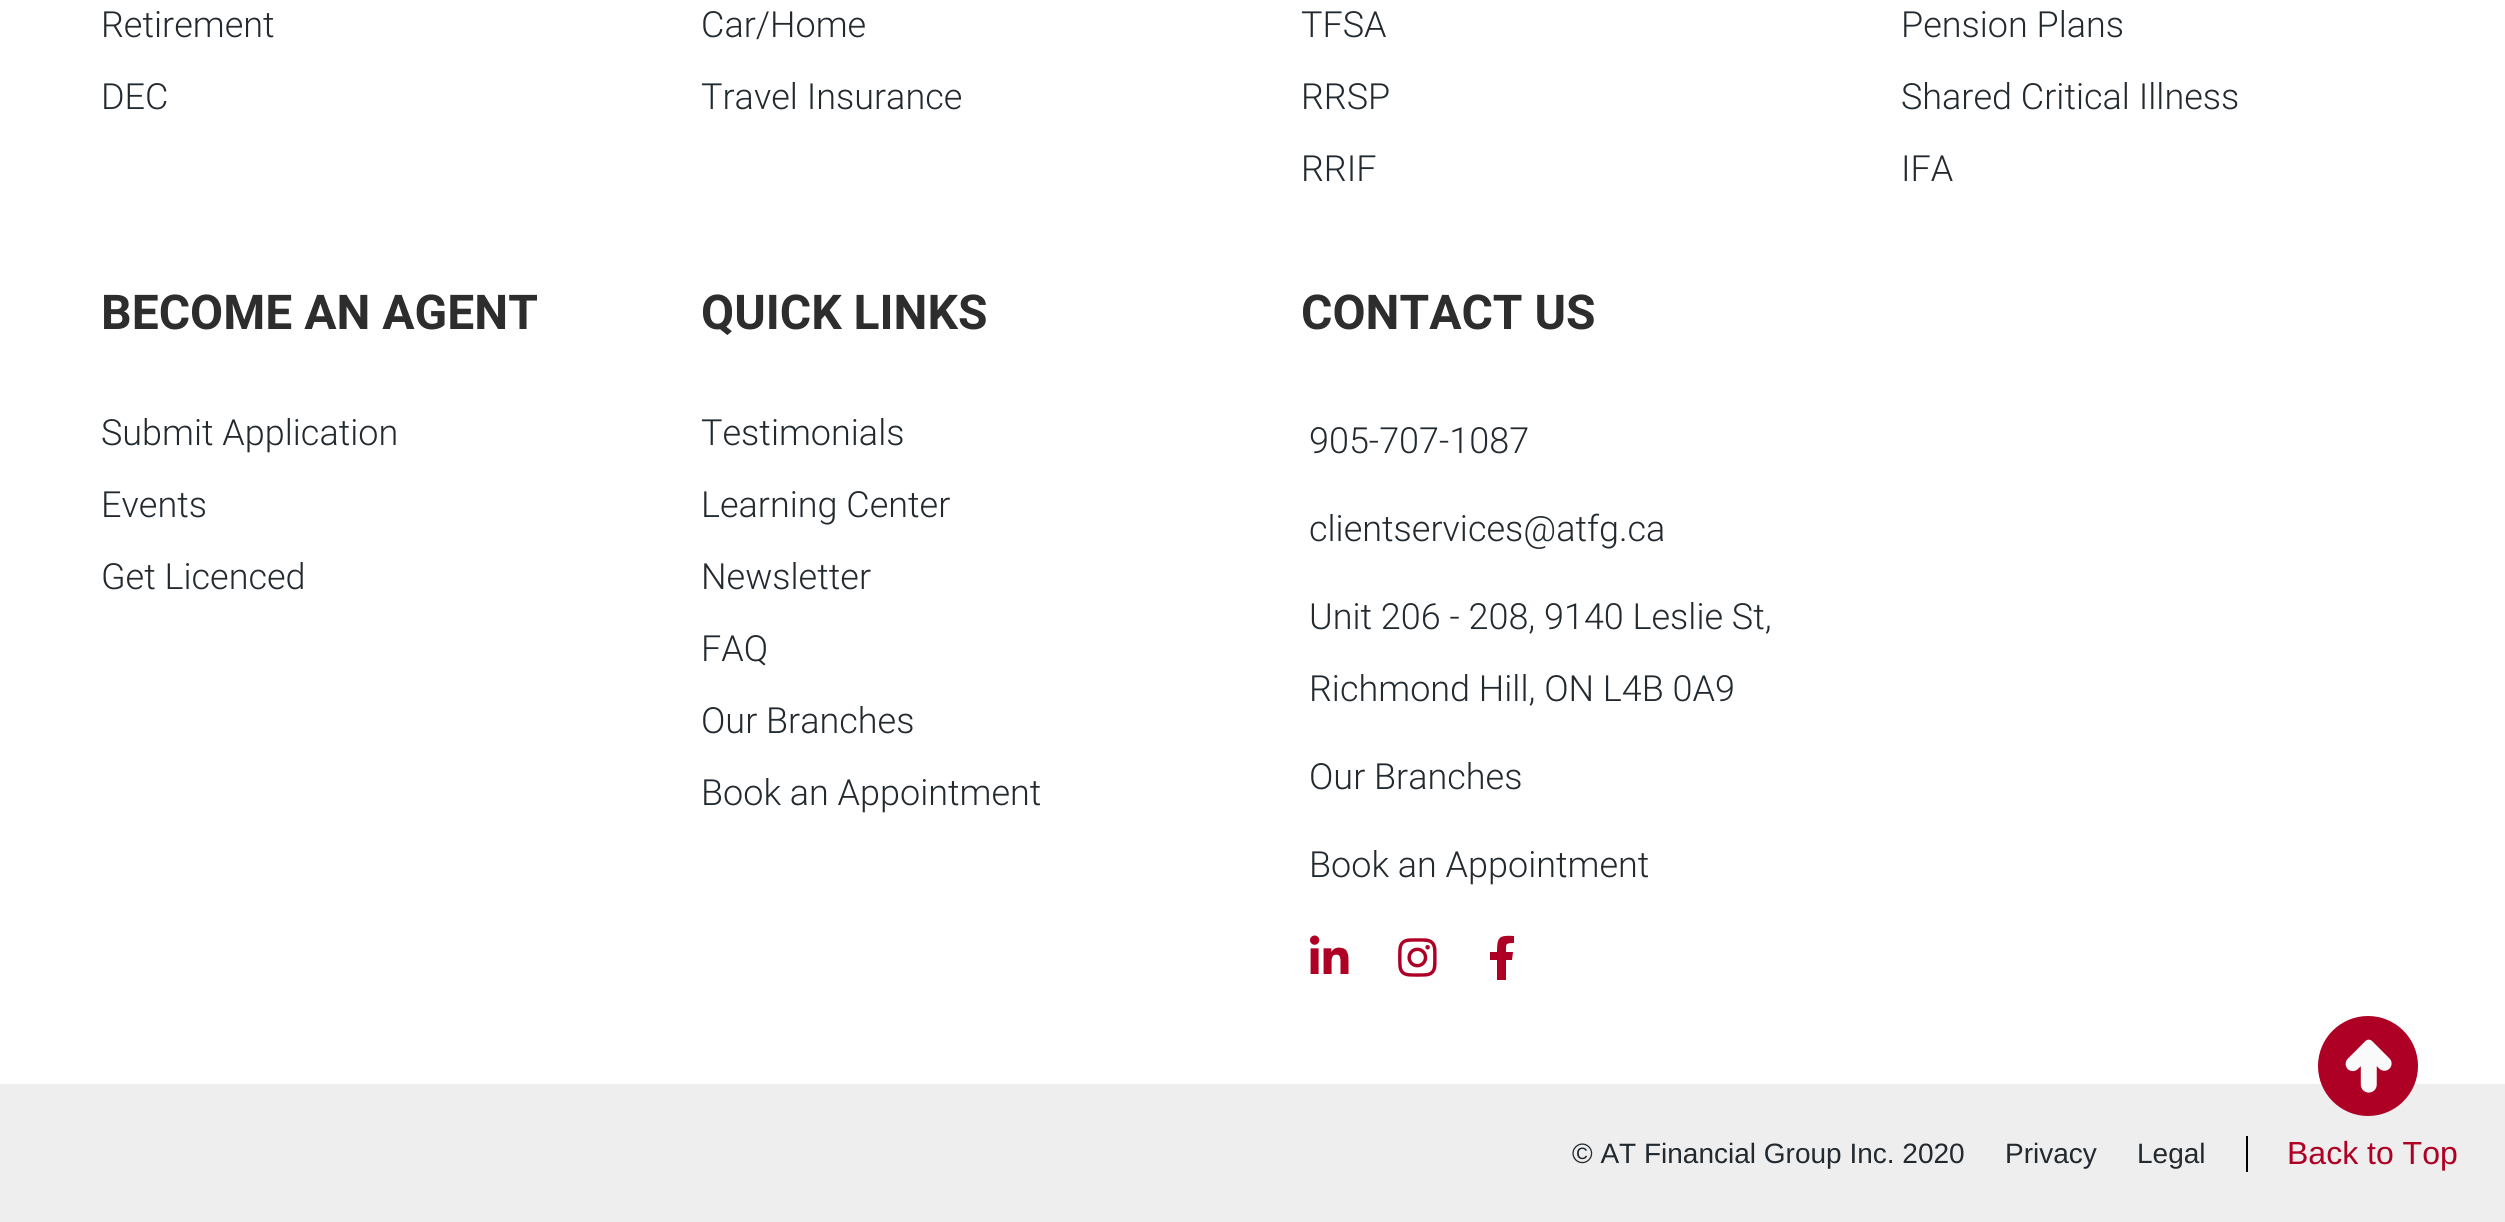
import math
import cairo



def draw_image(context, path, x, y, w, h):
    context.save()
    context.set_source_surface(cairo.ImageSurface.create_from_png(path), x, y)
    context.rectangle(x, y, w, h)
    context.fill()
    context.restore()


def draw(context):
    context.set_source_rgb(1, 1, 1)
    context.paint()
    draw_image(context, "images/1.png", 1310, 935, 39, 39)
    draw_image(context, "images/2.png", 1398, 938, 39, 39)
    context.set_source_rgb(174 / 255, 0, 36 / 255)
    context.new_path()
    context.move_to(1512, 960)
    context.line_to(1506, 960)
    context.line_to(1506, 980)
    context.line_to(1497, 980)
    context.line_to(1497, 960)
    context.line_to(1490, 960)
    context.line_to(1490, 952)
    context.line_to(1497, 952)
    context.curve_to(1497, 937, 1499, 935, 1514, 936)
    context.line_to(1514, 943)
    context.curve_to(1505, 943, 1506, 944, 1506, 952)
    context.line_to(1513, 952)
    context.close_path()
    context.fill()
    context.set_source_rgb(238 / 255, 238 / 255, 238 / 255)
    context.rectangle(0, 1084, 2505, 138)
    context.fill()
    context.set_source_rgb(0, 0, 0)
    context.rectangle(2246, 1136, 2, 36)
    context.fill()
    draw_image(context, "images/3.png", 2318, 1016, 100, 100)
    context.select_font_face("Roboto Light")
    context.set_font_size(36)
    context.set_source_rgb(34 / 255, 41 / 255, 47 / 255)
    context.move_to(101, 37)
    context.show_text("Retirement")
    context.move_to(101, 109)
    context.show_text("DEC")
    context.move_to(701, 37)
    context.show_text("Car/Home")
    context.move_to(701, 109)
    context.show_text("Travel Insurance")
    context.move_to(1301, 37)
    context.show_text("TFSA")
    context.move_to(1301, 109)
    context.show_text("RRSP")
    context.move_to(1301, 181)
    context.show_text("RRIF")
    context.move_to(1901, 37)
    context.show_text("Pension Plans")
    context.move_to(1901, 109)
    context.show_text("Shared Critical Illness")
    context.move_to(1901, 181)
    context.show_text("IFA")
    context.select_font_face("Roboto", cairo.FontSlant.NORMAL, cairo.FontWeight.BOLD)
    context.set_font_size(48)
    context.set_source_rgb(45 / 255, 45 / 255, 45 / 255)
    context.move_to(101, 329)
    context.show_text("BECOME AN AGENT")
    context.select_font_face("Roboto Light")
    context.set_font_size(36)
    context.set_source_rgb(34 / 255, 41 / 255, 47 / 255)
    context.move_to(101, 445)
    context.show_text("Submit Application")
    context.move_to(101, 517)
    context.show_text("Events")
    context.move_to(101, 589)
    context.show_text("Get Licenced")
    context.select_font_face("Roboto", cairo.FontSlant.NORMAL, cairo.FontWeight.BOLD)
    context.set_font_size(48)
    context.set_source_rgb(45 / 255, 45 / 255, 45 / 255)
    context.move_to(701, 329)
    context.show_text("QUICK LINKS")
    context.select_font_face("Roboto Light")
    context.set_font_size(36)
    context.set_source_rgb(34 / 255, 41 / 255, 47 / 255)
    context.move_to(701, 445)
    context.show_text("Testimonials")
    context.move_to(701, 517)
    context.show_text("Learning Center")
    context.move_to(701, 589)
    context.show_text("Newsletter")
    context.move_to(701, 661)
    context.show_text("FAQ")
    context.move_to(701, 733)
    context.show_text("Our Branches")
    context.move_to(701, 805)
    context.show_text("Book an Appointment")
    context.select_font_face("Roboto", cairo.FontSlant.NORMAL, cairo.FontWeight.BOLD)
    context.set_font_size(48)
    context.set_source_rgb(45 / 255, 45 / 255, 45 / 255)
    context.move_to(1301, 329)
    context.show_text("CONTACT US")
    context.select_font_face("Roboto Light")
    context.set_font_size(36)
    context.set_source_rgb(34 / 255, 41 / 255, 47 / 255)
    context.move_to(1309, 453)
    context.show_text("905-707-1087")
    context.move_to(1309, 541)
    context.show_text("clientservices@atfg.ca")
    context.move_to(1309, 629)
    context.show_text("Unit 206 - 208, 9140 Leslie St,")
    context.move_to(1309, 701)
    context.show_text("Richmond Hill, ON L4B 0A9")
    context.move_to(1309, 789)
    context.show_text("Our Branches")
    context.move_to(1309, 877)
    context.show_text("Book an Appointment")
    context.select_font_face("Liberation Sans")
    context.set_font_size(28)
    context.move_to(1572, 1163)
    context.show_text("© AT Financial Group Inc. 2020")
    context.move_to(2005, 1163)
    context.show_text("Privacy")
    context.move_to(2137, 1163)
    context.show_text("Legal")
    context.set_font_size(32)
    context.set_source_rgb(174 / 255, 0, 36 / 255)
    context.move_to(2287, 1164)
    context.show_text("Back to Top")


surface = cairo.ImageSurface(cairo.Format.RGB24, 2505, 1222)
context = cairo.Context(surface)
options = cairo.FontOptions()
options.set_hint_metrics(cairo.HintMetrics.OFF)
options.set_hint_style(cairo.HintStyle.NONE)
context.set_font_options(options)
context.set_miter_limit(4)
draw(context)
surface.write_to_png("out.png")
